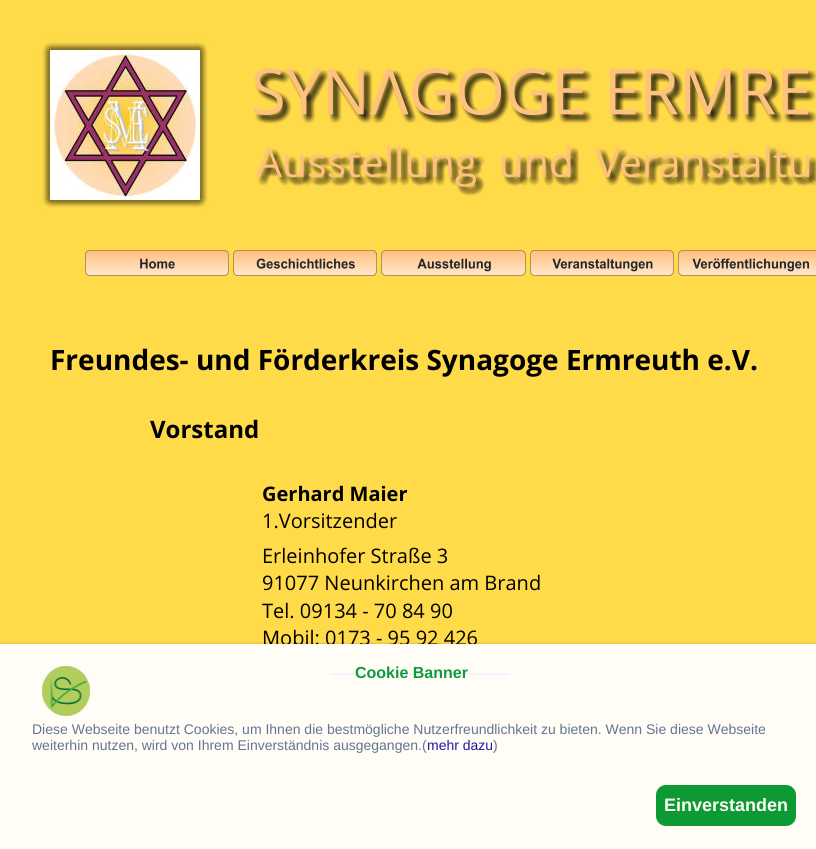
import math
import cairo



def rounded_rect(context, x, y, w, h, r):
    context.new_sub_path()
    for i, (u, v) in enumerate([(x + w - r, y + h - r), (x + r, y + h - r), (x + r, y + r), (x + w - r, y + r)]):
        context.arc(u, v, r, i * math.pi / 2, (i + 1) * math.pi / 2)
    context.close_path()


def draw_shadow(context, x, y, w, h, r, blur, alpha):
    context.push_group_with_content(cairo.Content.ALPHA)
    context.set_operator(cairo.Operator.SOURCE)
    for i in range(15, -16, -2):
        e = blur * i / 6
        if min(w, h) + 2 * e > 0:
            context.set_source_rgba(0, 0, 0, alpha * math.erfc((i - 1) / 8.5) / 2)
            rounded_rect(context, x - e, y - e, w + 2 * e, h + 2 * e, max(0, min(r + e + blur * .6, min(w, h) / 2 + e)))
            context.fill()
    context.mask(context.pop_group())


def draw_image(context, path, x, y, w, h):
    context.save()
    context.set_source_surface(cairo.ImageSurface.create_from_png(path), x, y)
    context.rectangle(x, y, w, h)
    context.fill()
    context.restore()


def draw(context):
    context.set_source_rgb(1, 218 / 255, 73 / 255)
    context.paint()
    draw_image(context, "images/1.png", 39, 36, 173, 176)
    draw_image(context, "images/2.png", 254, 68, 562, 128)
    draw_image(context, "images/3.png", 85, 250, 144, 26)
    draw_image(context, "images/4.png", 233, 250, 144, 26)
    draw_image(context, "images/5.png", 381, 250, 145, 26)
    draw_image(context, "images/6.png", 530, 250, 144, 26)
    draw_image(context, "images/7.png", 678, 250, 138, 26)
    context.set_source_rgb(0, 0, 238 / 255)
    context.rectangle(330, 673, 180, 2)
    context.fill()
    context.save()
    context.rectangle(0, 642, 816, 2)
    context.clip()
    context.set_source_rgb(10 / 255, 10 / 255, 10 / 255)
    draw_shadow(context, 0, 645, 816, 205, 0, 2, 0.38)
    context.restore()
    context.select_font_face("Open Sans", cairo.FontSlant.NORMAL, cairo.FontWeight.BOLD)
    context.set_font_size(28)
    context.set_source_rgb(0, 0, 0)
    context.move_to(50, 370)
    context.show_text("Freundes- und Förderkreis Synagoge Ermreuth e.V.")
    context.set_font_size(24)
    context.move_to(150, 438)
    context.show_text("Vorstand")
    context.set_font_size(20)
    context.move_to(262, 501)
    context.show_text("Gerhard Maier")
    context.select_font_face("Open Sans")
    context.move_to(262, 528)
    context.show_text("1.Vorsitzender")
    context.move_to(262, 563)
    context.show_text("Erleinhofer Straße 3")
    context.move_to(262, 590)
    context.show_text("91077 Neunkirchen am Brand")
    context.move_to(262, 618)
    context.show_text("Tel. 09134 - 70 84 90")
    context.move_to(262, 645)
    context.show_text("Mobil: 0173 - 95 92 426")
    context.set_source_rgba(1, 1, 1, 0.95)
    context.rectangle(0, 644, 816, 205)
    context.fill()
    context.select_font_face("Liberation Sans", cairo.FontSlant.NORMAL, cairo.FontWeight.BOLD)
    context.set_font_size(16)
    context.set_source_rgb(13 / 255, 155 / 255, 60 / 255)
    context.move_to(355, 678)
    context.show_text("Cookie Banner")
    draw_image(context, "images/8.png", 42, 666, 48, 50)
    context.select_font_face("Liberation Sans")
    context.set_font_size(14)
    context.set_source_rgb(98 / 255, 117 / 255, 145 / 255)
    context.move_to(32, 734)
    context.show_text("Diese Webseite benutzt Cookies, um Ihnen die bestmögliche Nutzerfreundlichkeit zu bieten. Wenn Sie diese Webseite")
    context.move_to(32, 750)
    context.show_text("weiterhin nutzen, wird von Ihrem Einverständnis ausgegangen.(")
    context.set_source_rgb(37 / 255, 23 / 255, 166 / 255)
    context.move_to(427, 750)
    context.show_text("mehr dazu")
    context.set_source_rgb(98 / 255, 115 / 255, 137 / 255)
    context.move_to(493, 750)
    context.show_text(")")
    context.set_source_rgb(13 / 255, 153 / 255, 51 / 255)
    rounded_rect(context, 656, 785, 140, 41, 10)
    context.fill()
    context.select_font_face("Liberation Sans", cairo.FontSlant.NORMAL, cairo.FontWeight.BOLD)
    context.set_font_size(18)
    context.set_source_rgb(1, 253 / 255, 246 / 255)
    context.move_to(664, 811)
    context.show_text("Einverstanden")


surface = cairo.ImageSurface(cairo.Format.RGB24, 816, 849)
context = cairo.Context(surface)
options = cairo.FontOptions()
options.set_hint_metrics(cairo.HintMetrics.OFF)
options.set_hint_style(cairo.HintStyle.NONE)
context.set_font_options(options)
context.set_miter_limit(4)
draw(context)
surface.write_to_png("out.png")
